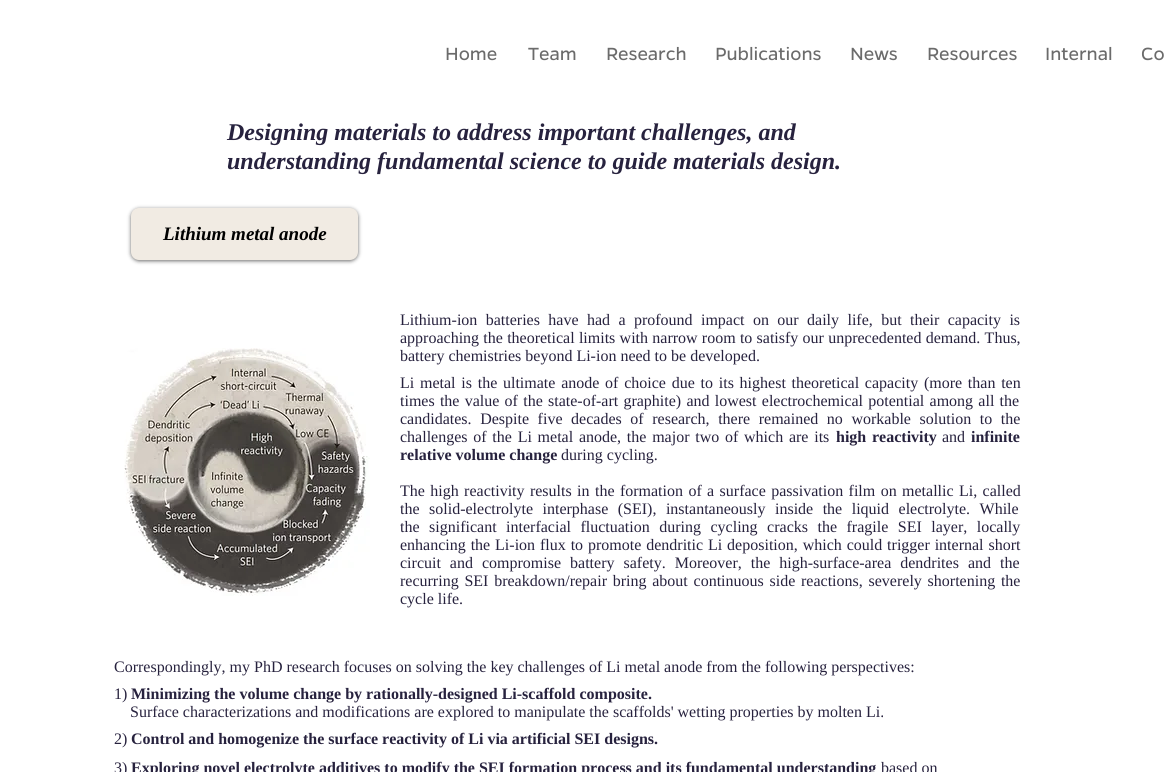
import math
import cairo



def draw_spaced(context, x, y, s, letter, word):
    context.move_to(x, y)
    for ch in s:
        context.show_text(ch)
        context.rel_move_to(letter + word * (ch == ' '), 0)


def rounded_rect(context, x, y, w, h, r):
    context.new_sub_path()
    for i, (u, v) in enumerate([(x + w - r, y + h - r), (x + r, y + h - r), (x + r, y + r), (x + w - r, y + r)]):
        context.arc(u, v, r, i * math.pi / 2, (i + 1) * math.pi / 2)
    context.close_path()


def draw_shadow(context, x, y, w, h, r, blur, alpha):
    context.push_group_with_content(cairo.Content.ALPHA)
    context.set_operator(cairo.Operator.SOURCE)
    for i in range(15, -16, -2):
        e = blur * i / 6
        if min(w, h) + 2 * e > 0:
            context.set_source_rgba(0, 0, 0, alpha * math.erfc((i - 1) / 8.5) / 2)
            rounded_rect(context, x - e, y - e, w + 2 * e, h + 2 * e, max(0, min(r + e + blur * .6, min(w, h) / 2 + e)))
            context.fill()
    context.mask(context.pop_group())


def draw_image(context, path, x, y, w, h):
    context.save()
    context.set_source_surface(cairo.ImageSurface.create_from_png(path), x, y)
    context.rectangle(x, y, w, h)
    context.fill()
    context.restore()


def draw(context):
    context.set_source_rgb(1, 1, 1)
    context.paint()
    context.set_source_rgb(0, 0, 0)
    draw_shadow(context, 131, 209, 227, 52, 8, 2, 0.6)
    context.set_source_rgb(241 / 255, 235 / 255, 227 / 255)
    rounded_rect(context, 131, 208, 227, 52, 8)
    context.fill()
    draw_image(context, "images/1.png", 124, 348, 246, 248)
    context.select_font_face("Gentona")
    context.set_font_size(20)
    context.set_source_rgb(107 / 255, 107 / 255, 107 / 255)
    context.move_to(445, 60)
    context.show_text("Home")
    context.move_to(528, 60)
    context.show_text("Team")
    context.move_to(606, 60)
    context.show_text("Research")
    context.move_to(715, 60)
    context.show_text("Publications")
    context.move_to(850, 60)
    context.show_text("News")
    context.move_to(927, 60)
    context.show_text("Resources")
    context.move_to(1045, 60)
    context.show_text("Internal")
    context.move_to(1141, 60)
    context.show_text("Co")
    context.select_font_face("Liberation Serif", cairo.FontSlant.ITALIC, cairo.FontWeight.BOLD)
    context.set_font_size(24)
    context.set_source_rgb(39 / 255, 34 / 255, 62 / 255)
    context.move_to(227, 140)
    context.show_text("Designing materials to address important challenges, and")
    context.move_to(227, 169)
    context.show_text("understanding fundamental science to guide materials design.")
    context.set_font_size(19)
    context.set_source_rgb(0, 0, 0)
    context.move_to(163, 240)
    context.show_text("Lithium metal anode")
    context.select_font_face("Liberation Serif")
    context.set_font_size(16)
    context.set_source_rgb(39 / 255, 34 / 255, 62 / 255)
    draw_spaced(context, 400, 325, "Lithium-ion batteries have had a profound impact on our daily life, but their capacity is", 0, 4.4)
    draw_spaced(context, 400, 343, "approaching the theoretical limits with narrow room to satisfy our unprecedented demand. Thus,", 0, 0.25)
    context.move_to(400, 361)
    context.show_text("battery chemistries beyond Li-ion need to be developed.")
    draw_spaced(context, 400, 388, "Li metal is the ultimate anode of choice due to its highest theoretical capacity (more than ten", 0, 1.75)
    draw_spaced(context, 400, 406, "times the value of the state-of-art graphite) and lowest electrochemical potential among all the", 0, 1.25)
    draw_spaced(context, 400, 424, "candidates. Despite five decades of research, there remained no workable solution to the", 0, 4.6)
    draw_spaced(context, 400, 442, "challenges of the Li metal anode, the major two of which are its", 0, 1.75)
    context.select_font_face("Liberation Serif", cairo.FontSlant.NORMAL, cairo.FontWeight.BOLD)
    draw_spaced(context, 836, 442, "high reactivity", 0, 1.75)
    context.select_font_face("Liberation Serif")
    context.move_to(942, 442)
    context.show_text("and")
    context.select_font_face("Liberation Serif", cairo.FontSlant.NORMAL, cairo.FontWeight.BOLD)
    context.move_to(971, 442)
    context.show_text("infinite")
    context.move_to(400, 460)
    context.show_text("relative volume change")
    context.select_font_face("Liberation Serif")
    context.move_to(561, 460)
    context.show_text("during cycling.")
    draw_spaced(context, 400, 496, "The high reactivity results in the formation of a surface passivation film on metallic Li, called", 0, 1.4)
    draw_spaced(context, 400, 514, "the solid-electrolyte interphase (SEI), instantaneously inside the liquid electrolyte. While", 0, 5.5)
    draw_spaced(context, 400, 532, "the significant interfacial fluctuation during cycling cracks the fragile SEI layer, locally", 0, 5.5)
    draw_spaced(context, 400, 550, "enhancing the Li-ion flux to promote dendritic Li deposition, which could trigger internal short", 0, 0.9)
    draw_spaced(context, 400, 568, "circuit and compromise battery safety. Moreover, the high-surface-area dendrites and the", 0, 5)
    draw_spaced(context, 400, 586, "recurring SEI breakdown/repair bring about continuous side reactions, severely shortening the", 0, 1.75)
    context.move_to(400, 604)
    context.show_text("cycle life.")
    context.move_to(114, 672)
    context.show_text("Correspondingly, my PhD research focuses on solving the key challenges of Li metal anode from the following perspectives:")
    context.move_to(114, 699)
    context.show_text("1)")
    context.select_font_face("Liberation Serif", cairo.FontSlant.NORMAL, cairo.FontWeight.BOLD)
    context.move_to(131, 699)
    context.show_text("Minimizing the volume change by rationally-designed Li-scaffold composite.")
    context.select_font_face("Liberation Serif")
    context.move_to(130, 717)
    context.show_text("Surface characterizations and modifications are explored to manipulate the scaffolds' wetting properties by molten Li.")
    context.move_to(114, 744)
    context.show_text("2)")
    context.select_font_face("Liberation Serif", cairo.FontSlant.NORMAL, cairo.FontWeight.BOLD)
    context.move_to(131, 744)
    context.show_text("Control and homogenize the surface reactivity of Li via artificial SEI designs.")
    context.select_font_face("Liberation Serif")
    context.move_to(114, 773)
    context.show_text("3)")
    context.select_font_face("Liberation Serif", cairo.FontSlant.NORMAL, cairo.FontWeight.BOLD)
    context.move_to(131, 773)
    context.show_text("Exploring novel electrolyte additives to modify the SEI formation process and its fundamental understanding")
    context.select_font_face("Liberation Serif")
    context.move_to(881, 773)
    context.show_text("based on")


surface = cairo.ImageSurface(cairo.Format.RGB24, 1164, 772)
context = cairo.Context(surface)
options = cairo.FontOptions()
options.set_hint_metrics(cairo.HintMetrics.OFF)
options.set_hint_style(cairo.HintStyle.NONE)
context.set_font_options(options)
context.set_miter_limit(4)
draw(context)
surface.write_to_png("out.png")
